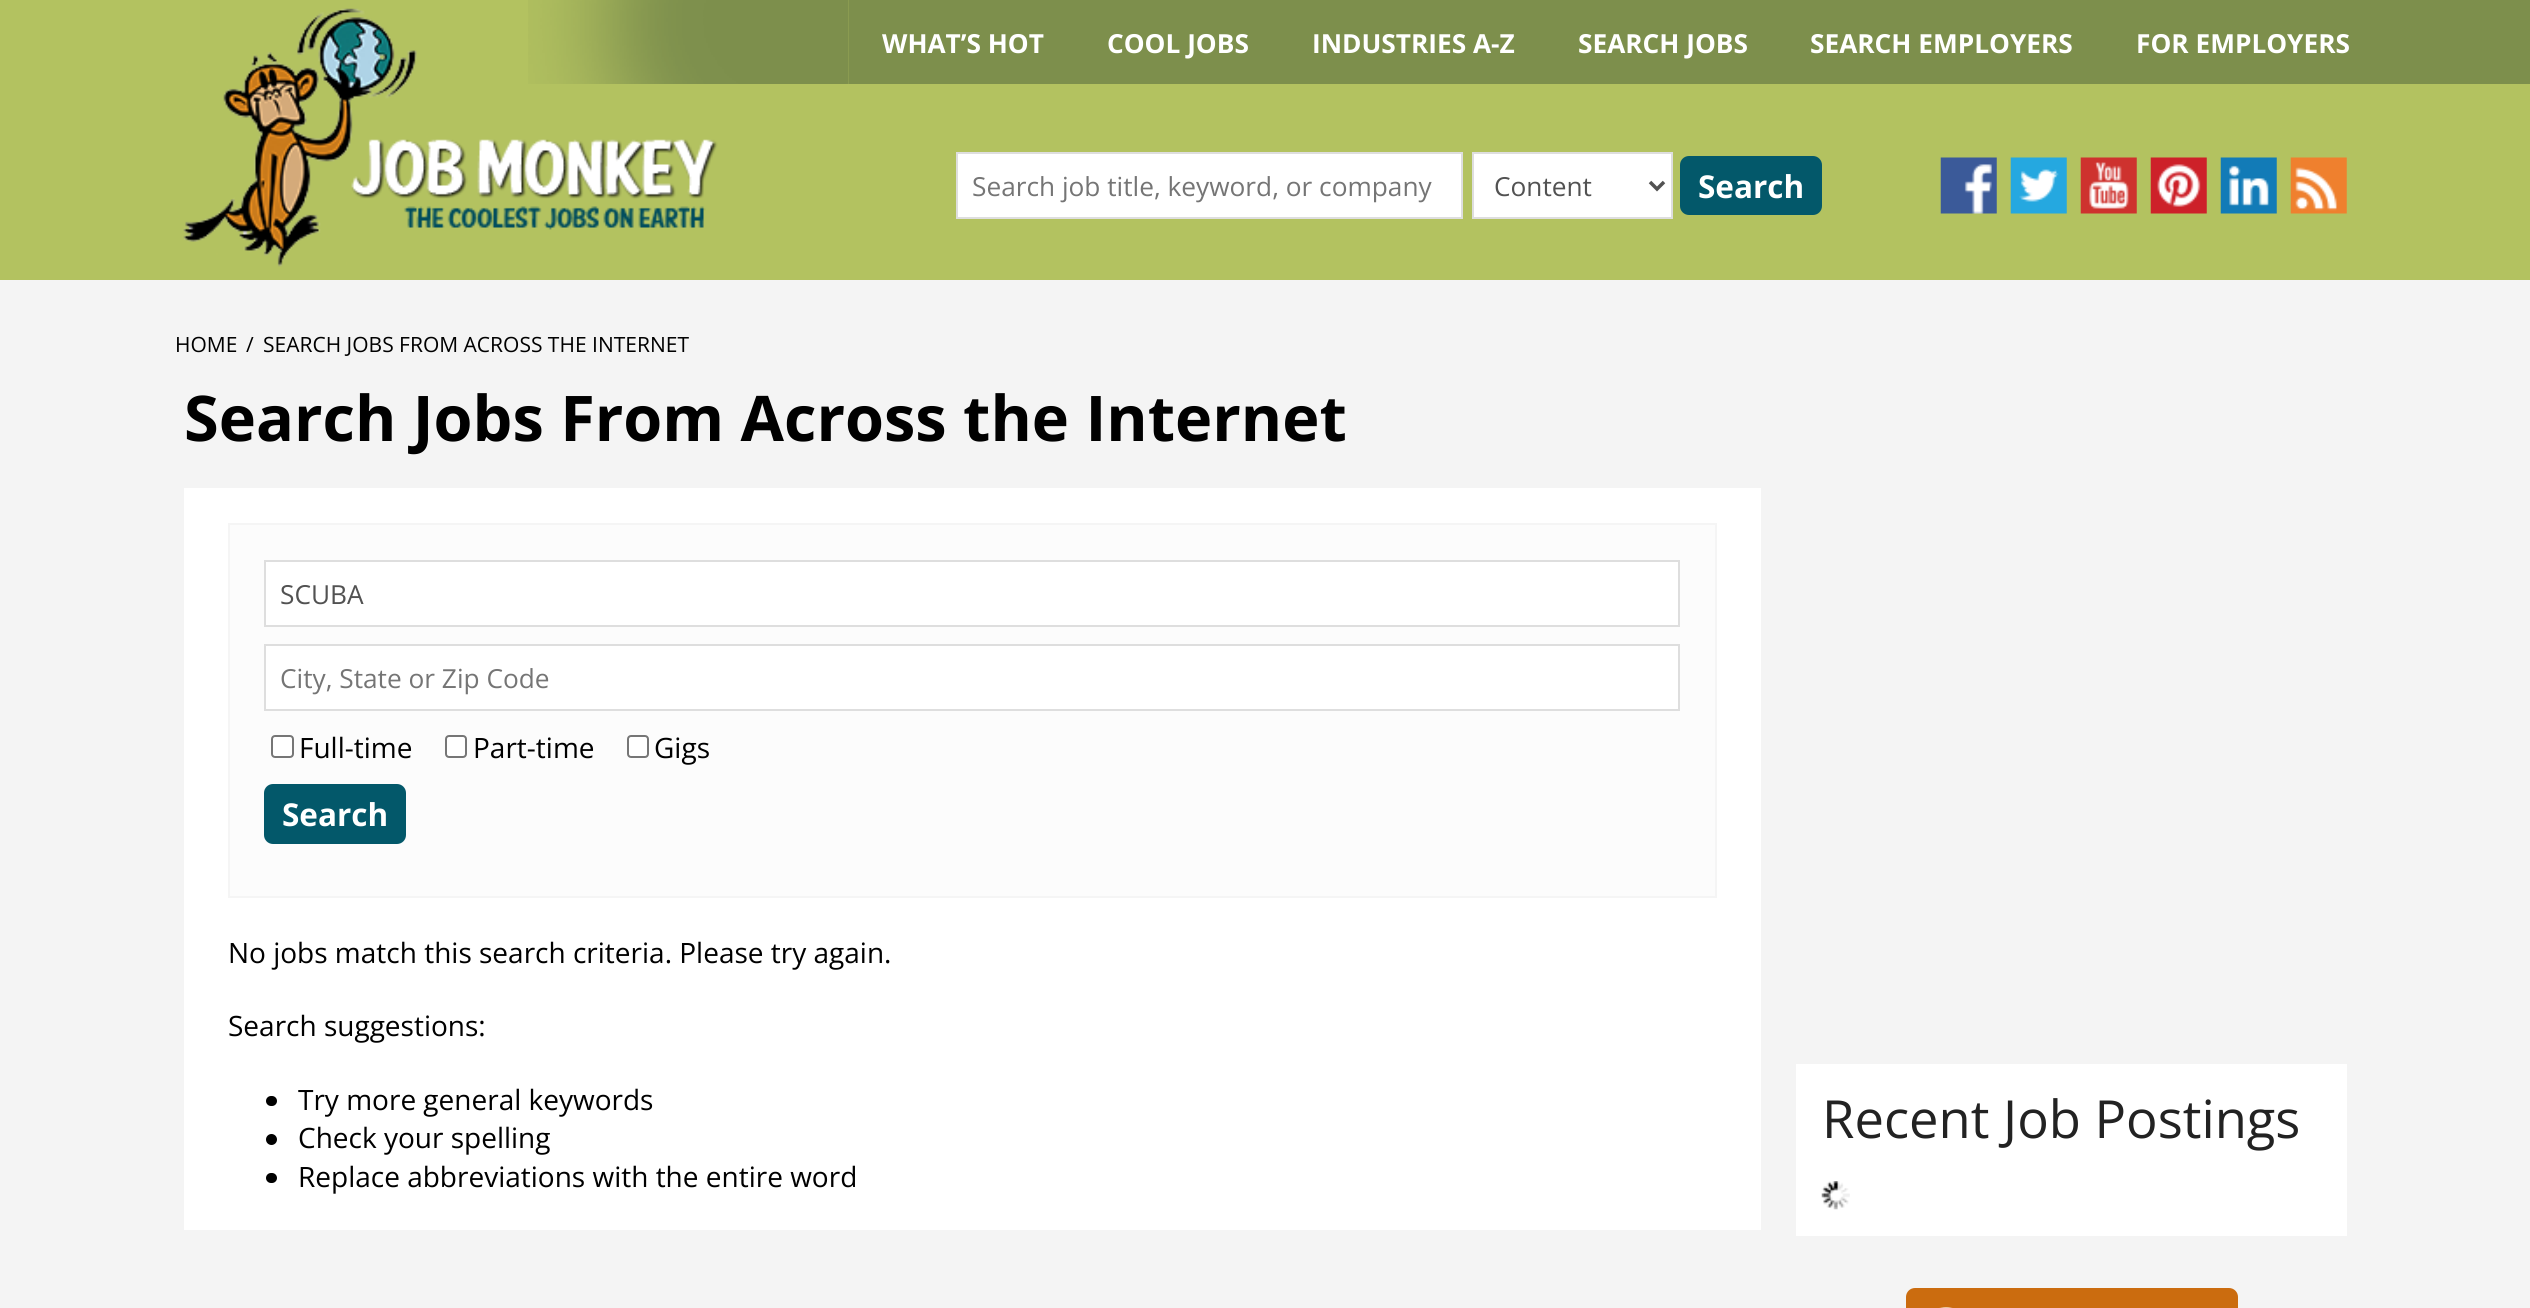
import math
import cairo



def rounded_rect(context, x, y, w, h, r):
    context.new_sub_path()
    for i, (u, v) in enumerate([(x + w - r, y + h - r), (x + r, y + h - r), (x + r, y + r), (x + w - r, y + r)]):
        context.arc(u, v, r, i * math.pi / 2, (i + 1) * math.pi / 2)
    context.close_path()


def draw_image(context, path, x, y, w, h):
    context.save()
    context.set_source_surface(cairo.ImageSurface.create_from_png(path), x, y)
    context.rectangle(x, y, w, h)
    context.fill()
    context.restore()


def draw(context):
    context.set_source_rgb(244 / 255, 244 / 255, 244 / 255)
    context.paint()
    context.set_source_rgb(179 / 255, 194 / 255, 96 / 255)
    context.rectangle(0, 0, 2530, 280)
    context.fill()
    context.set_source_rgb(125 / 255, 143 / 255, 76 / 255)
    context.rectangle(849, 0, 1681, 84)
    context.fill()
    draw_image(context, "images/1.png", 528, 0, 321, 84)
    draw_image(context, "images/2.png", 183, 8, 535, 259)
    context.set_source_rgb(1, 1, 1)
    context.rectangle(957, 153, 505, 65)
    context.fill_preserve()
    context.set_source_rgb(222 / 255, 222 / 255, 222 / 255)
    context.stroke()
    context.set_source_rgb(1, 1, 1)
    context.rectangle(1473, 153, 199, 65)
    context.fill_preserve()
    context.set_source_rgb(222 / 255, 222 / 255, 222 / 255)
    context.stroke()
    context.new_path()
    context.move_to(1650, 182)
    context.line_to(1657, 189)
    context.line_to(1664, 182)
    context.set_source_rgb(82 / 255, 82 / 255, 82 / 255)
    context.set_line_width(3.5)
    context.stroke()
    context.set_source_rgb(3 / 255, 88 / 255, 106 / 255)
    rounded_rect(context, 1680, 156, 142, 59, 9)
    context.fill()
    draw_image(context, "images/3.png", 1940, 157, 57, 57)
    draw_image(context, "images/4.png", 2010, 157, 57, 57)
    draw_image(context, "images/5.png", 2080, 157, 57, 57)
    draw_image(context, "images/6.png", 2150, 157, 57, 57)
    draw_image(context, "images/7.png", 2220, 157, 57, 57)
    draw_image(context, "images/8.png", 2290, 157, 57, 57)
    context.set_source_rgb(1, 1, 1)
    context.rectangle(184, 488, 1577, 742)
    context.fill()
    context.set_source_rgb(252 / 255, 252 / 255, 252 / 255)
    context.rectangle(229, 524, 1487, 373)
    context.fill_preserve()
    context.set_source_rgb(245 / 255, 245 / 255, 245 / 255)
    context.set_line_width(2)
    context.stroke()
    context.set_source_rgb(1, 1, 1)
    context.rectangle(265, 561, 1414, 65)
    context.fill_preserve()
    context.set_source_rgb(222 / 255, 222 / 255, 222 / 255)
    context.stroke()
    context.set_source_rgb(1, 1, 1)
    context.rectangle(265, 645, 1414, 65)
    context.fill_preserve()
    context.set_source_rgb(222 / 255, 222 / 255, 222 / 255)
    context.stroke()
    context.set_source_rgb(1, 1, 1)
    rounded_rect(context, 272, 736, 21, 21, 3)
    context.fill_preserve()
    context.set_source_rgb(118 / 255, 118 / 255, 118 / 255)
    context.stroke()
    context.set_source_rgb(1, 1, 1)
    rounded_rect(context, 446, 736, 20, 21, 3)
    context.fill_preserve()
    context.set_source_rgb(118 / 255, 118 / 255, 118 / 255)
    context.stroke()
    context.set_source_rgb(1, 1, 1)
    rounded_rect(context, 628, 736, 20, 21, 3)
    context.fill_preserve()
    context.set_source_rgb(118 / 255, 118 / 255, 118 / 255)
    context.stroke()
    context.set_source_rgb(3 / 255, 88 / 255, 106 / 255)
    rounded_rect(context, 264, 784, 142, 60, 9)
    context.fill()
    context.set_source_rgb(0, 0, 0)
    rounded_rect(context, 266, 1096, 11, 10, 5)
    context.fill()
    context.arc(271.5, 1139.5, 5.5, 0, 2 * math.pi)
    context.fill()
    rounded_rect(context, 266, 1173, 11, 10, 5)
    context.fill()
    context.set_source_rgb(1, 1, 1)
    context.rectangle(1796, 1064, 551, 172)
    context.fill()
    draw_image(context, "images/9.png", 1821, 1181, 29, 29)
    context.set_source_rgb(203 / 255, 108 / 255, 15 / 255)
    rounded_rect(context, 1906, 1288, 332, 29, 9)
    context.fill()
    draw_image(context, "images/10.png", 1939, 1307, 14, 1)
    context.select_font_face("Open Sans", cairo.FontSlant.NORMAL, cairo.FontWeight.BOLD)
    context.set_font_size(26.25)
    context.set_source_rgb(1, 1, 1)
    context.move_to(882, 53)
    context.show_text("WHAT’S HOT")
    context.move_to(1107, 53)
    context.show_text("COOL JOBS")
    context.move_to(1312, 53)
    context.show_text("INDUSTRIES A-Z")
    context.move_to(1578, 53)
    context.show_text("SEARCH JOBS")
    context.move_to(1810, 53)
    context.show_text("SEARCH EMPLOYERS")
    context.move_to(2136, 53)
    context.show_text("FOR EMPLOYERS")
    context.select_font_face("Open Sans")
    context.set_source_rgb(117 / 255, 117 / 255, 117 / 255)
    context.move_to(972, 196)
    context.show_text("Search job title, keyword, or company")
    context.set_source_rgb(82 / 255, 82 / 255, 82 / 255)
    context.move_to(1494, 196)
    context.show_text("Content")
    context.select_font_face("Open Sans", cairo.FontSlant.NORMAL, cairo.FontWeight.BOLD)
    context.set_font_size(31.5)
    context.set_source_rgb(1, 1, 1)
    context.move_to(1698, 198)
    context.show_text("Search")
    context.select_font_face("Open Sans")
    context.set_font_size(21)
    context.set_source_rgb(0, 0, 0)
    context.move_to(175, 352)
    context.show_text("HOME")
    context.move_to(246, 352)
    context.show_text("/")
    context.move_to(263, 352)
    context.show_text("SEARCH JOBS FROM ACROSS THE INTERNET")
    context.select_font_face("Open Sans", cairo.FontSlant.NORMAL, cairo.FontWeight.BOLD)
    context.set_font_size(63)
    context.move_to(184, 441)
    context.show_text("Search Jobs From Across the Internet")
    context.select_font_face("Open Sans")
    context.set_font_size(26.25)
    context.set_source_rgb(82 / 255, 82 / 255, 82 / 255)
    context.move_to(280, 604)
    context.show_text("SCUBA")
    context.set_source_rgb(117 / 255, 117 / 255, 117 / 255)
    context.move_to(280, 688)
    context.show_text("City, State or Zip Code")
    context.set_font_size(28)
    context.set_source_rgb(0, 0, 0)
    context.move_to(299, 758)
    context.show_text("Full-time")
    context.move_to(473, 758)
    context.show_text("Part-time")
    context.move_to(654, 758)
    context.show_text("Gigs")
    context.select_font_face("Open Sans", cairo.FontSlant.NORMAL, cairo.FontWeight.BOLD)
    context.set_font_size(31.5)
    context.set_source_rgb(1, 1, 1)
    context.move_to(282, 826)
    context.show_text("Search")
    context.select_font_face("Open Sans")
    context.set_font_size(28)
    context.set_source_rgb(0, 0, 0)
    context.move_to(228, 963)
    context.show_text("No jobs match this search criteria. Please try again.")
    context.move_to(228, 1036)
    context.show_text("Search suggestions:")
    context.move_to(298, 1110)
    context.show_text("Try more general keywords")
    context.move_to(298, 1148)
    context.show_text("Check your spelling")
    context.move_to(298, 1187)
    context.show_text("Replace abbreviations with the entire word")
    context.set_font_size(52.5)
    context.set_source_rgb(34 / 255, 34 / 255, 34 / 255)
    context.move_to(1822, 1138)
    context.show_text("Recent Job Postings")


surface = cairo.ImageSurface(cairo.Format.RGB24, 2530, 1308)
context = cairo.Context(surface)
options = cairo.FontOptions()
options.set_hint_metrics(cairo.HintMetrics.OFF)
options.set_hint_style(cairo.HintStyle.NONE)
context.set_font_options(options)
context.set_miter_limit(4)
draw(context)
surface.write_to_png("out.png")
